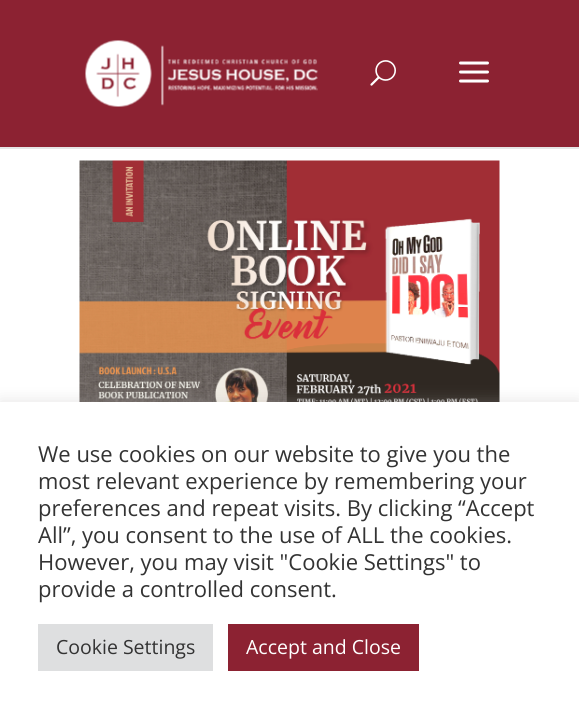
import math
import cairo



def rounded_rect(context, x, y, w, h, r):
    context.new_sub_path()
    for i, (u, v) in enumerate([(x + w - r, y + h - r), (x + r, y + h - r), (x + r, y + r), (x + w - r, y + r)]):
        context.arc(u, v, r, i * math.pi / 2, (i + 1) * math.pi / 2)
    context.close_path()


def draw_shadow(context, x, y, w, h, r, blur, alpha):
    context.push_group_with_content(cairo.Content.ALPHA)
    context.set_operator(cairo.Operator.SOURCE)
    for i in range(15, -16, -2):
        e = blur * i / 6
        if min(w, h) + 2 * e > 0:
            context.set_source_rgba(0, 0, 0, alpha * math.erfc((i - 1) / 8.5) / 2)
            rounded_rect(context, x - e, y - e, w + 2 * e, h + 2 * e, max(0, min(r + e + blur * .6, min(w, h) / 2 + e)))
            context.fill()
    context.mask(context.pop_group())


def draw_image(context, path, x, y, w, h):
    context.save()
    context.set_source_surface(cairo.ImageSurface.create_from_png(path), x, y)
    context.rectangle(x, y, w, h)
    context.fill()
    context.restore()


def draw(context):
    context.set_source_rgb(1, 1, 1)
    context.paint()
    context.set_source_rgb(230 / 255, 230 / 255, 230 / 255)
    context.rectangle(0, 147, 579, 2)
    context.fill()
    context.set_source_rgb(140 / 255, 34 / 255, 50 / 255)
    context.rectangle(0, 0, 579, 147)
    context.fill()
    draw_image(context, "images/1.png", 85, 40, 233, 67)
    draw_image(context, "images/2.png", 370, 60, 26, 26)
    draw_image(context, "images/3.png", 459, 61, 30, 22)
    draw_image(context, "images/4.png", 79, 160, 421, 242)
    context.set_source_rgb(172 / 255, 171 / 255, 171 / 255)
    draw_shadow(context, 0, 401, 579, 313, 0, 7.5, 0.3)
    context.set_source_rgb(1, 1, 1)
    context.rectangle(0, 402, 579, 313)
    context.fill()
    context.set_source_rgb(222 / 255, 223 / 255, 224 / 255)
    context.rectangle(38, 624, 175, 47)
    context.fill()
    context.set_source_rgb(140 / 255, 34 / 255, 50 / 255)
    context.rectangle(228, 624, 191, 47)
    context.fill()
    context.select_font_face("Open Sans")
    context.set_font_size(22)
    context.set_source_rgb(51 / 255, 51 / 255, 51 / 255)
    context.move_to(38, 462)
    context.show_text("We use cookies on our website to give you the")
    context.move_to(38, 489)
    context.show_text("most relevant experience by remembering your")
    context.move_to(38, 516)
    context.show_text("preferences and repeat visits. By clicking “Accept")
    context.move_to(38, 543)
    context.show_text("All”, you consent to the use of ALL the cookies.")
    context.move_to(38, 570)
    context.show_text("However, you may visit \"Cookie Settings\" to")
    context.move_to(38, 597)
    context.show_text("provide a controlled consent.")
    context.set_font_size(19.5)
    context.move_to(56, 654)
    context.show_text("Cookie Settings")
    context.set_source_rgb(1, 1, 1)
    context.move_to(246, 654)
    context.show_text("Accept and Close")


surface = cairo.ImageSurface(cairo.Format.RGB24, 579, 715)
context = cairo.Context(surface)
options = cairo.FontOptions()
options.set_hint_metrics(cairo.HintMetrics.OFF)
options.set_hint_style(cairo.HintStyle.NONE)
context.set_font_options(options)
context.set_miter_limit(4)
draw(context)
surface.write_to_png("out.png")
